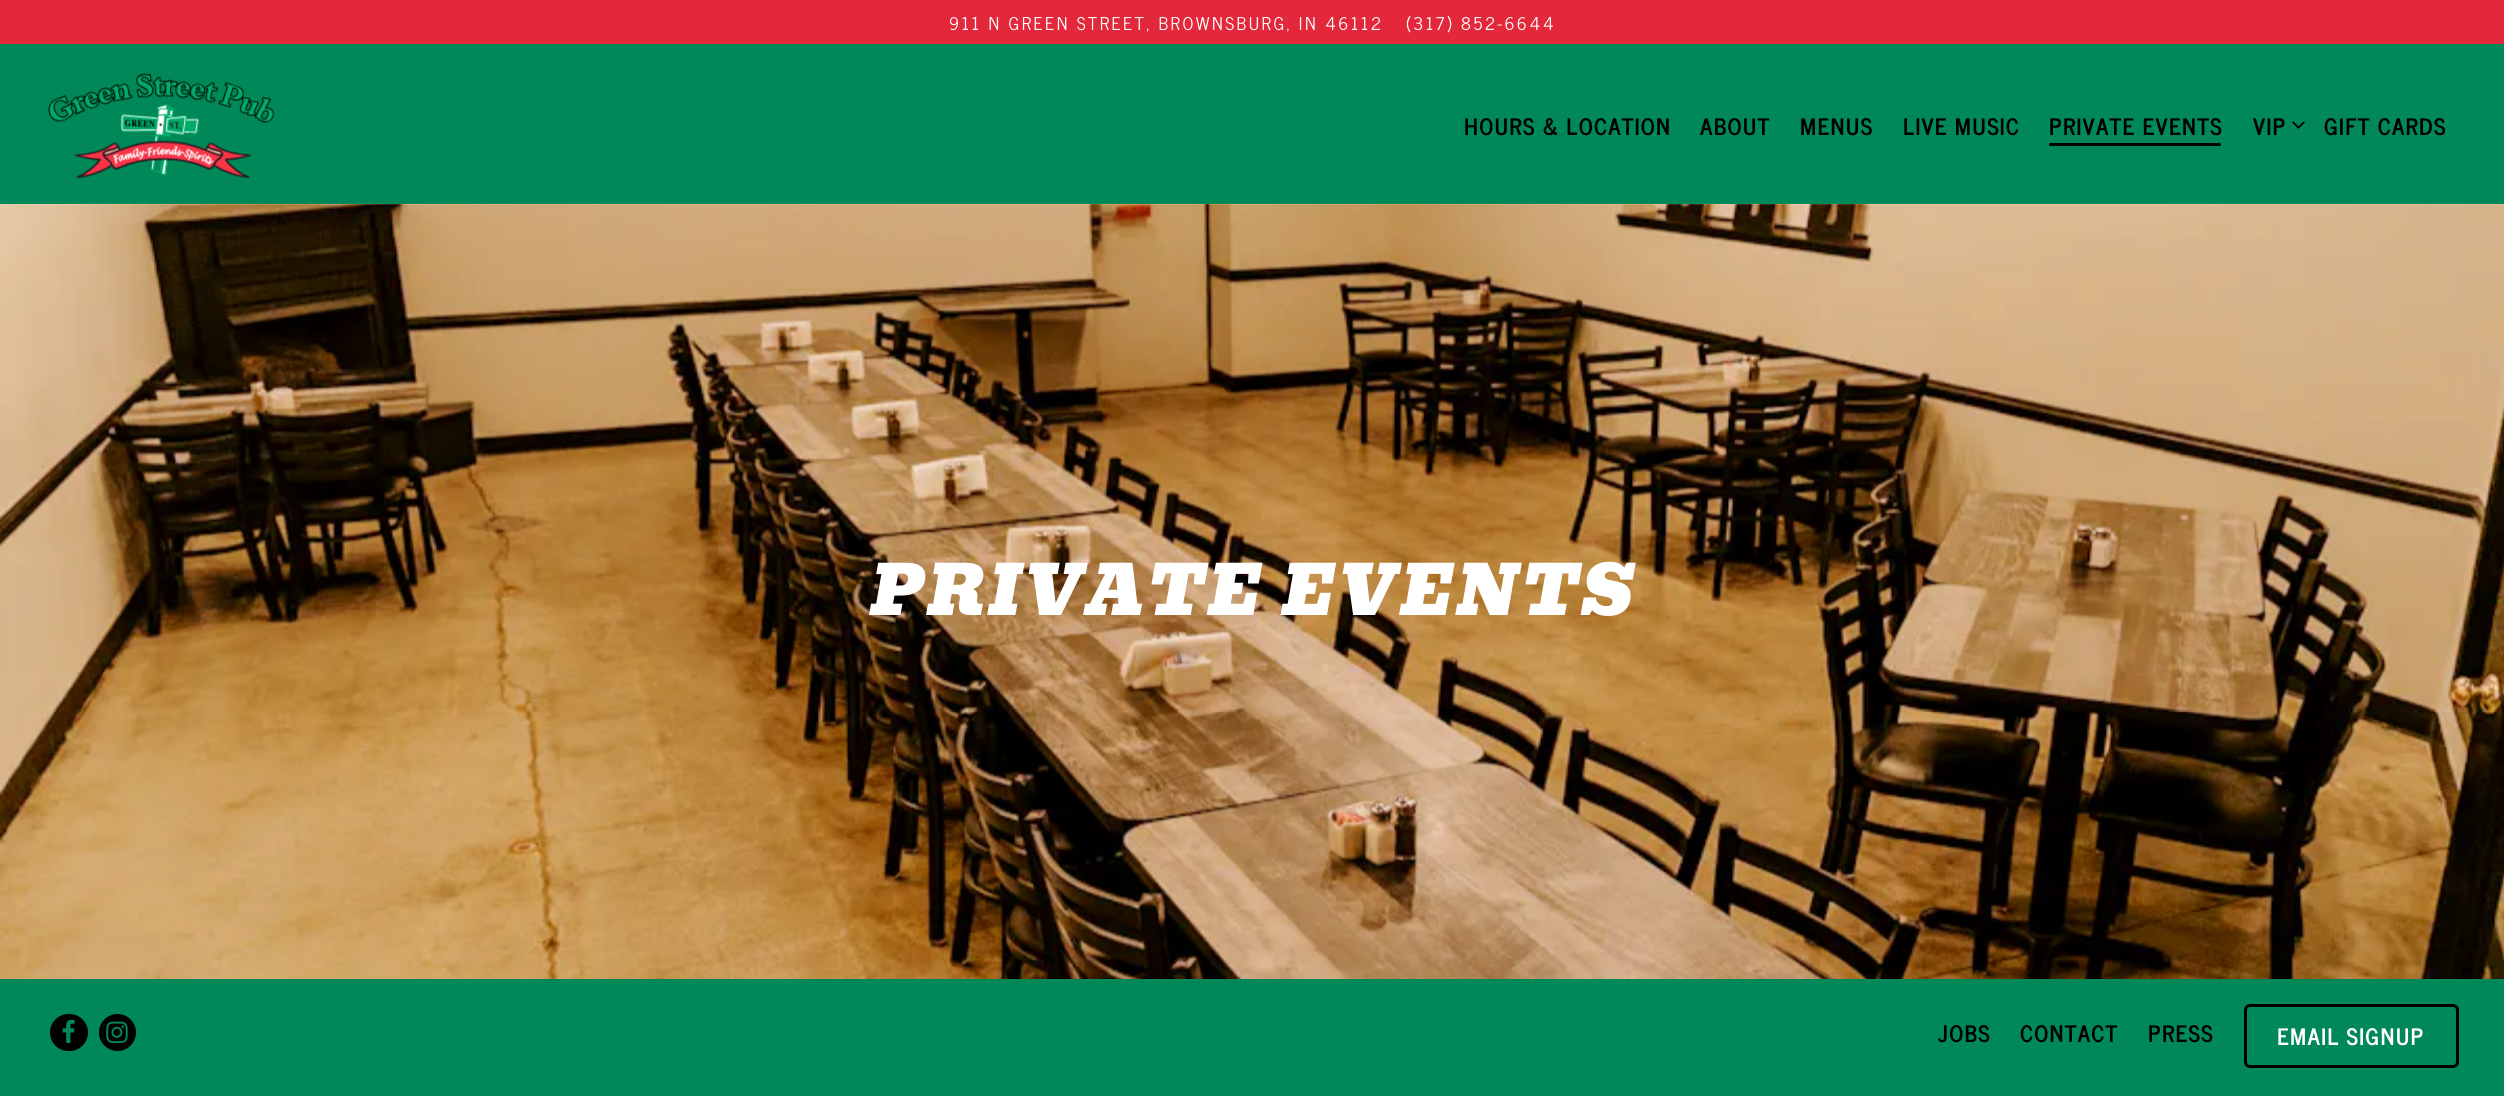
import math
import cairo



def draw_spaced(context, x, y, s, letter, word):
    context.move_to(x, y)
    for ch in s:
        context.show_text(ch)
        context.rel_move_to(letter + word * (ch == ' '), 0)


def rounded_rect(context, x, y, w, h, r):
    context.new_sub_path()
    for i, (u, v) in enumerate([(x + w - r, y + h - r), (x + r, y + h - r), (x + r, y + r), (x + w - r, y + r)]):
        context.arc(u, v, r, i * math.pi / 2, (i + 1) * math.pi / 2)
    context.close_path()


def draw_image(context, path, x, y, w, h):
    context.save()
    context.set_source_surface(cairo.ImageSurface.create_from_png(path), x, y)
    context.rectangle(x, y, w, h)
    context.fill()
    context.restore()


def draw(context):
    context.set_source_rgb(1, 1, 1)
    context.paint()
    context.set_source_rgb(226 / 255, 40 / 255, 58 / 255)
    context.rectangle(0, 0, 2504, 44)
    context.fill()
    context.set_source_rgb(1 / 255, 136 / 255, 89 / 255)
    context.rectangle(0, 44, 2504, 160)
    context.fill()
    draw_image(context, "images/1.png", 48, 73, 227, 106)
    context.set_source_rgb(0, 0, 0)
    rounded_rect(context, 2049, 143, 172, 3, 1.5)
    context.fill()
    draw_image(context, "images/2.png", 2292, 121, 13, 8)
    draw_image(context, "images/3.png", 0, 204, 2504, 775)
    context.set_source_rgb(1 / 255, 136 / 255, 89 / 255)
    context.rectangle(0, 979, 2504, 117)
    context.fill()
    context.set_source_rgb(0, 0, 0)
    rounded_rect(context, 50, 1014, 38, 37, 18.5)
    context.fill()
    draw_image(context, "images/4.png", 62, 1019, 13, 24)
    context.arc(117.5, 1032.5, 18.5, 0, 2 * math.pi)
    context.fill()
    draw_image(context, "images/5.png", 106, 1021, 22, 22)
    rounded_rect(context, 2245.5, 1005.5, 212, 61, 4.5)
    context.set_line_width(3)
    context.stroke()
    context.select_font_face("News Cycle")
    context.set_font_size(17.5)
    context.set_source_rgb(1, 1, 1)
    draw_spaced(context, 949, 30, "911 N GREEN STREET, BROWNSBURG, IN 46112", 2.5, 0)
    draw_spaced(context, 1406, 30, "(317) 852-6644", 2.5, 0)
    context.select_font_face("News Cycle", cairo.FontSlant.NORMAL, cairo.FontWeight.BOLD)
    context.set_font_size(22.5)
    context.set_source_rgb(0, 0, 0)
    draw_spaced(context, 1464, 135, "HOURS & LOCATION", 1.25, 0)
    draw_spaced(context, 1700, 135, "ABOUT", 1.25, 0)
    draw_spaced(context, 1800, 135, "MENUS", 1.25, 0)
    draw_spaced(context, 1903, 135, "LIVE MUSIC", 1.25, 0)
    draw_spaced(context, 2049, 135, "PRIVATE EVENTS", 1.25, 0)
    draw_spaced(context, 2253, 135, "VIP", 1.25, 0)
    draw_spaced(context, 2324, 135, "GIFT CARDS", 1.25, 0)
    context.select_font_face("Bevan", cairo.FontSlant.ITALIC)
    context.set_font_size(67.25)
    context.set_source_rgb(1, 1, 1)
    draw_spaced(context, 870, 615, "PRIVATE EVENTS", 3.75, 0)
    context.select_font_face("News Cycle", cairo.FontSlant.NORMAL, cairo.FontWeight.BOLD)
    context.set_font_size(22.5)
    context.set_source_rgb(0, 0, 0)
    draw_spaced(context, 1938, 1042, "JOBS", 1.25, 0)
    draw_spaced(context, 2020, 1042, "CONTACT", 1.25, 0)
    draw_spaced(context, 2148, 1042, "PRESS", 1.25, 0)
    context.set_source_rgb(1, 1, 1)
    draw_spaced(context, 2277, 1045, "EMAIL SIGNUP", 1.25, 0)


surface = cairo.ImageSurface(cairo.Format.RGB24, 2504, 1096)
context = cairo.Context(surface)
options = cairo.FontOptions()
options.set_hint_metrics(cairo.HintMetrics.OFF)
options.set_hint_style(cairo.HintStyle.NONE)
context.set_font_options(options)
context.set_miter_limit(4)
draw(context)
surface.write_to_png("out.png")
